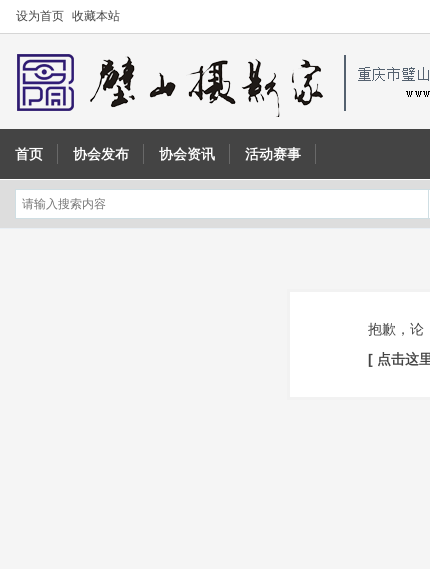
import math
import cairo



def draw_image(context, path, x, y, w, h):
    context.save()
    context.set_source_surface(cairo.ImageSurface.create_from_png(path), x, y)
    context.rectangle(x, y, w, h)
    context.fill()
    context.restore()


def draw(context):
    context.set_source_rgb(245 / 255, 245 / 255, 245 / 255)
    context.paint()
    context.set_source_rgb(1, 1, 1)
    context.rectangle(0, 0, 430, 33)
    context.fill()
    context.set_source_rgb(214 / 255, 214 / 255, 214 / 255)
    context.rectangle(0, 33, 430, 1)
    context.fill()
    draw_image(context, "images/1.png", 17, 54, 413, 63)
    context.set_source_rgb(68 / 255, 68 / 255, 68 / 255)
    context.rectangle(0, 129, 430, 50)
    context.fill()
    context.set_source_rgb(105 / 255, 105 / 255, 105 / 255)
    context.rectangle(57, 144, 1, 20)
    context.fill()
    context.rectangle(143, 144, 1, 20)
    context.fill()
    context.rectangle(229, 144, 1, 20)
    context.fill()
    context.rectangle(315, 144, 1, 20)
    context.fill()
    context.set_source_rgb(221 / 255, 221 / 255, 221 / 255)
    context.rectangle(0, 180, 430, 48)
    context.fill()
    context.set_source_rgb(1, 1, 1)
    context.rectangle(0, 179, 430, 1)
    context.fill()
    context.set_source_rgb(233 / 255, 239 / 255, 245 / 255)
    context.rectangle(0, 228, 430, 1)
    context.fill()
    context.set_source_rgb(1, 1, 1)
    context.rectangle(429, 189, 1, 30)
    context.fill()
    context.set_source_rgb(207 / 255, 222 / 255, 227 / 255)
    context.rectangle(427, 189, 3, 1)
    context.fill()
    context.rectangle(427, 218, 3, 1)
    context.fill()
    context.set_source_rgb(1, 1, 1)
    context.rectangle(15.5, 189.5, 413, 29)
    context.fill_preserve()
    context.set_source_rgb(207 / 255, 222 / 255, 227 / 255)
    context.set_line_width(1)
    context.stroke()
    context.set_source_rgb(1, 1, 1)
    context.rectangle(288.5, 290.5, 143, 108)
    context.fill_preserve()
    context.set_source_rgb(242 / 255, 242 / 255, 242 / 255)
    context.set_line_width(3)
    context.stroke()
    context.select_font_face("WenQuanYi Zen Hei Medium")
    context.set_font_size(12)
    context.set_source_rgb(68 / 255, 68 / 255, 68 / 255)
    context.move_to(16, 20)
    context.show_text("设为首页")
    context.move_to(72, 20)
    context.show_text("收藏本站")
    context.select_font_face("WenQuanYi Zen Hei", cairo.FontSlant.NORMAL, cairo.FontWeight.BOLD)
    context.set_font_size(14)
    context.set_source_rgb(1, 1, 1)
    context.move_to(15, 159)
    context.show_text("首页")
    context.move_to(73, 159)
    context.show_text("协会发布")
    context.move_to(159, 159)
    context.show_text("协会资讯")
    context.move_to(245, 159)
    context.show_text("活动赛事")
    context.select_font_face("WenQuanYi Zen Hei Medium")
    context.set_font_size(12)
    context.set_source_rgb(117 / 255, 117 / 255, 117 / 255)
    context.move_to(22, 208)
    context.show_text("请输入搜索内容")
    context.set_font_size(14)
    context.set_source_rgb(68 / 255, 68 / 255, 68 / 255)
    context.move_to(368, 334)
    context.show_text("抱歉，论")
    context.select_font_face("Liberation Sans", cairo.FontSlant.NORMAL, cairo.FontWeight.BOLD)
    context.move_to(368, 364)
    context.show_text("[")
    context.select_font_face("WenQuanYi Zen Hei", cairo.FontSlant.NORMAL, cairo.FontWeight.BOLD)
    context.move_to(377, 364)
    context.show_text("点击这里")


surface = cairo.ImageSurface(cairo.Format.RGB24, 430, 569)
context = cairo.Context(surface)
options = cairo.FontOptions()
options.set_hint_metrics(cairo.HintMetrics.OFF)
options.set_hint_style(cairo.HintStyle.NONE)
context.set_font_options(options)
context.set_miter_limit(4)
draw(context)
surface.write_to_png("out.png")
